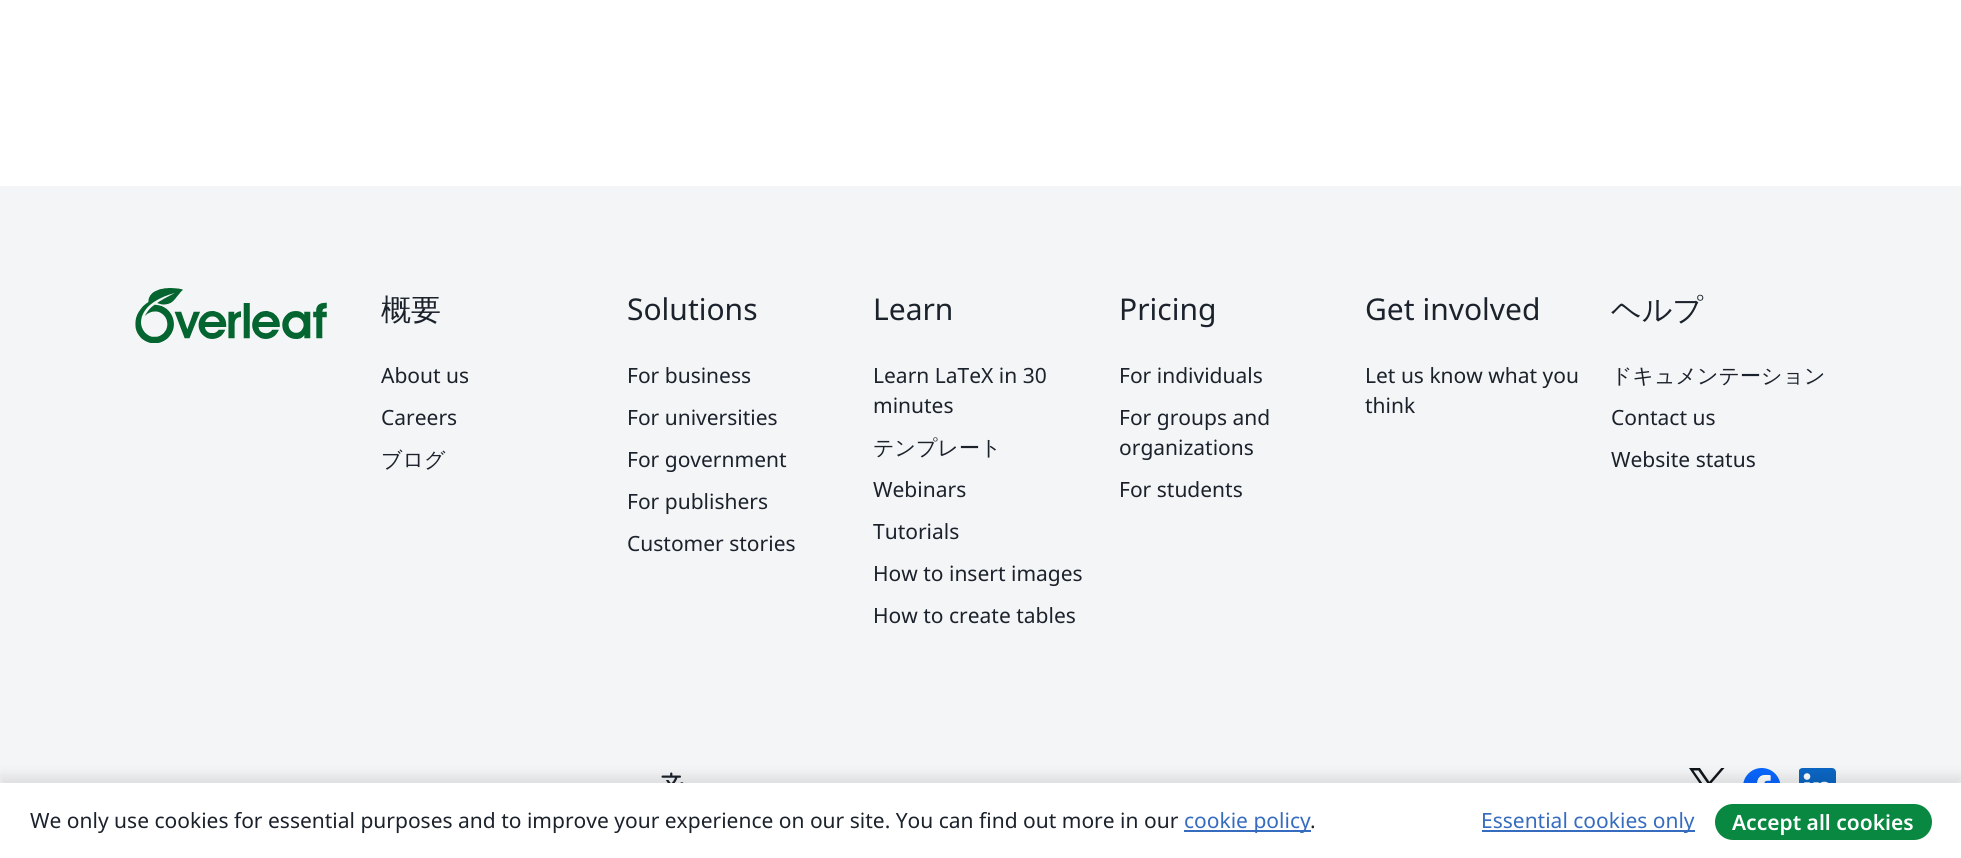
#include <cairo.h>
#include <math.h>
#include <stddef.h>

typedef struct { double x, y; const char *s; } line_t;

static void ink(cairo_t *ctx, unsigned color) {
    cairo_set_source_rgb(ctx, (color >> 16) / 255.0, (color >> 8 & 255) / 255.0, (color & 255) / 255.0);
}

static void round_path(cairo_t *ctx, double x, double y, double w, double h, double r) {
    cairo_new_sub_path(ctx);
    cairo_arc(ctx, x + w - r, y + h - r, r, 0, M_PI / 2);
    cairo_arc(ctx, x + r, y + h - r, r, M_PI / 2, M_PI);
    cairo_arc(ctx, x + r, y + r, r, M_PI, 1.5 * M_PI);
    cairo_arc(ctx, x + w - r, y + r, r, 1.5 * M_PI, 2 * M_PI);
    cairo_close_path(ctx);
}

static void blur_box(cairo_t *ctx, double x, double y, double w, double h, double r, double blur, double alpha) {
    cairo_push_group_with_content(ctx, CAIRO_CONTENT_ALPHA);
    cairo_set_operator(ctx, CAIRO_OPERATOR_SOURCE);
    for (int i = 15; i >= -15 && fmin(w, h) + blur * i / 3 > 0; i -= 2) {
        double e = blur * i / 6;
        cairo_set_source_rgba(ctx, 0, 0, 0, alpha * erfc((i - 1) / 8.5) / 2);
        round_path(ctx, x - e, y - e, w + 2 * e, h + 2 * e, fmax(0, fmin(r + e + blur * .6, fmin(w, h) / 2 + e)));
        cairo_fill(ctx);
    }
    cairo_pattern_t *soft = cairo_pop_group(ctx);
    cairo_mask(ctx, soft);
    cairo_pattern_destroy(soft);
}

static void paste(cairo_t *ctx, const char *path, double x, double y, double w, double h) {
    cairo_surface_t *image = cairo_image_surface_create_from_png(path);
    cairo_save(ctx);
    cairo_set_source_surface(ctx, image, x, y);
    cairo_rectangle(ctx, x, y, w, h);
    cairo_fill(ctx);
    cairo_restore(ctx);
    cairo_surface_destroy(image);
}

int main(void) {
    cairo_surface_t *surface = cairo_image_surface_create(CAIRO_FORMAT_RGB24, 1961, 858);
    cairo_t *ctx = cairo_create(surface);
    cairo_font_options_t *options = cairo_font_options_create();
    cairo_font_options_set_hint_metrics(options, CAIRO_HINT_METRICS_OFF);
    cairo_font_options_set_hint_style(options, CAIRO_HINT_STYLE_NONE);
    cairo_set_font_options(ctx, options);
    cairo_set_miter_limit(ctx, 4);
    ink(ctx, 0xFFFFFF);
    cairo_paint(ctx);
    ink(ctx, 0xF4F5F6);
    cairo_rectangle(ctx, 0, 186, 1961, 597);
    cairo_fill(ctx);
    paste(ctx, "media/1.png", 135, 288, 192, 55);
    cairo_select_font_face(ctx, "WenQuanYi Zen Hei Medium", CAIRO_FONT_SLANT_NORMAL, CAIRO_FONT_WEIGHT_NORMAL);
    cairo_set_font_size(ctx, 30);
    ink(ctx, 0x1B222C);
    cairo_move_to(ctx, 381, 320);
    cairo_show_text(ctx, "概要");
    cairo_select_font_face(ctx, "Noto Sans", CAIRO_FONT_SLANT_NORMAL, CAIRO_FONT_WEIGHT_NORMAL);
    cairo_set_font_size(ctx, 21);
    cairo_move_to(ctx, 381, 383);
    cairo_show_text(ctx, "About us");
    cairo_move_to(ctx, 381, 425);
    cairo_show_text(ctx, "Careers");
    cairo_select_font_face(ctx, "WenQuanYi Zen Hei Medium", CAIRO_FONT_SLANT_NORMAL, CAIRO_FONT_WEIGHT_NORMAL);
    cairo_move_to(ctx, 381, 467);
    cairo_show_text(ctx, "ブログ");
    cairo_select_font_face(ctx, "Noto Sans", CAIRO_FONT_SLANT_NORMAL, CAIRO_FONT_WEIGHT_NORMAL);
    cairo_set_font_size(ctx, 30);
    cairo_move_to(ctx, 627, 320);
    cairo_show_text(ctx, "Solutions");
    cairo_set_font_size(ctx, 21);
    {
        static const line_t items[] = {
            {627, 383, "For business"},
            {627, 425, "For universities"},
            {627, 467, "For government"},
            {627, 509, "For publishers"},
            {627, 551, "Customer stories"},
        };
        for (size_t i = 0; i < sizeof items / sizeof *items; i++) {
            cairo_move_to(ctx, items[i].x, items[i].y);
            cairo_show_text(ctx, items[i].s);
        }
    }
    cairo_set_font_size(ctx, 30);
    cairo_move_to(ctx, 873, 320);
    cairo_show_text(ctx, "Learn");
    cairo_set_font_size(ctx, 21);
    cairo_move_to(ctx, 873, 383);
    cairo_show_text(ctx, "Learn LaTeX in 30");
    cairo_move_to(ctx, 873, 413);
    cairo_show_text(ctx, "minutes");
    cairo_select_font_face(ctx, "WenQuanYi Zen Hei Medium", CAIRO_FONT_SLANT_NORMAL, CAIRO_FONT_WEIGHT_NORMAL);
    cairo_move_to(ctx, 873, 455);
    cairo_show_text(ctx, "テンプレート");
    cairo_select_font_face(ctx, "Noto Sans", CAIRO_FONT_SLANT_NORMAL, CAIRO_FONT_WEIGHT_NORMAL);
    {
        static const line_t items[] = {
            {873, 497, "Webinars"},
            {873, 539, "Tutorials"},
            {873, 581, "How to insert images"},
            {873, 623, "How to create tables"},
        };
        for (size_t i = 0; i < sizeof items / sizeof *items; i++) {
            cairo_move_to(ctx, items[i].x, items[i].y);
            cairo_show_text(ctx, items[i].s);
        }
    }
    cairo_set_font_size(ctx, 30);
    cairo_move_to(ctx, 1119, 320);
    cairo_show_text(ctx, "Pricing");
    cairo_set_font_size(ctx, 21);
    {
        static const line_t items[] = {
            {1119, 383, "For individuals"},
            {1119, 425, "For groups and"},
            {1119, 455, "organizations"},
            {1119, 497, "For students"},
        };
        for (size_t i = 0; i < sizeof items / sizeof *items; i++) {
            cairo_move_to(ctx, items[i].x, items[i].y);
            cairo_show_text(ctx, items[i].s);
        }
    }
    cairo_set_font_size(ctx, 30);
    cairo_move_to(ctx, 1365, 320);
    cairo_show_text(ctx, "Get involved");
    cairo_set_font_size(ctx, 21);
    cairo_move_to(ctx, 1365, 383);
    cairo_show_text(ctx, "Let us know what you");
    cairo_move_to(ctx, 1365, 413);
    cairo_show_text(ctx, "think");
    cairo_select_font_face(ctx, "WenQuanYi Zen Hei Medium", CAIRO_FONT_SLANT_NORMAL, CAIRO_FONT_WEIGHT_NORMAL);
    cairo_set_font_size(ctx, 30);
    cairo_move_to(ctx, 1611, 320);
    cairo_show_text(ctx, "ヘルプ");
    cairo_set_font_size(ctx, 21);
    cairo_move_to(ctx, 1611, 383);
    cairo_show_text(ctx, "ドキュメンテーション");
    cairo_select_font_face(ctx, "Noto Sans", CAIRO_FONT_SLANT_NORMAL, CAIRO_FONT_WEIGHT_NORMAL);
    cairo_move_to(ctx, 1611, 425);
    cairo_show_text(ctx, "Contact us");
    cairo_move_to(ctx, 1611, 467);
    cairo_show_text(ctx, "Website status");
    paste(ctx, "media/2.png", 661, 772, 23, 11);
    paste(ctx, "media/3.png", 1689, 768, 36, 15);
    paste(ctx, "media/4.png", 1743, 768, 38, 15);
    paste(ctx, "media/5.png", 1799, 768, 37, 15);
    ink(ctx, 0x000000);
    blur_box(ctx, 0, 776, 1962, 75, 0, 6, 0.1);
    ink(ctx, 0xFFFFFF);
    cairo_rectangle(ctx, 0, 783, 1961, 75);
    cairo_fill(ctx);
    ink(ctx, 0x1B222C);
    cairo_move_to(ctx, 30, 828);
    cairo_show_text(ctx, "We only use cookies for essential purposes and to improve your experience on our site. You can find out more in our");
    ink(ctx, 0x366CBF);
    cairo_rectangle(ctx, 1184, 830, 127, 2);
    cairo_fill(ctx);
    cairo_move_to(ctx, 1184, 828);
    cairo_show_text(ctx, "cookie policy");
    ink(ctx, 0x1B222C);
    cairo_move_to(ctx, 1310, 828);
    cairo_show_text(ctx, ".");
    ink(ctx, 0x366CBF);
    cairo_rectangle(ctx, 1482, 830, 213, 2);
    cairo_fill(ctx);
    cairo_move_to(ctx, 1481, 828);
    cairo_show_text(ctx, "Essential cookies only");
    ink(ctx, 0x098842);
    round_path(ctx, 1715, 804, 217, 36, 18);
    cairo_fill(ctx);
    cairo_select_font_face(ctx, "Noto Sans SemiBold", CAIRO_FONT_SLANT_NORMAL, CAIRO_FONT_WEIGHT_NORMAL);
    ink(ctx, 0xFFFFFF);
    cairo_move_to(ctx, 1732, 830);
    cairo_show_text(ctx, "Accept all cookies");
    cairo_surface_write_to_png(surface, "image.png");
    cairo_font_options_destroy(options);
    cairo_destroy(ctx);
    cairo_surface_destroy(surface);
    return 0;
}
